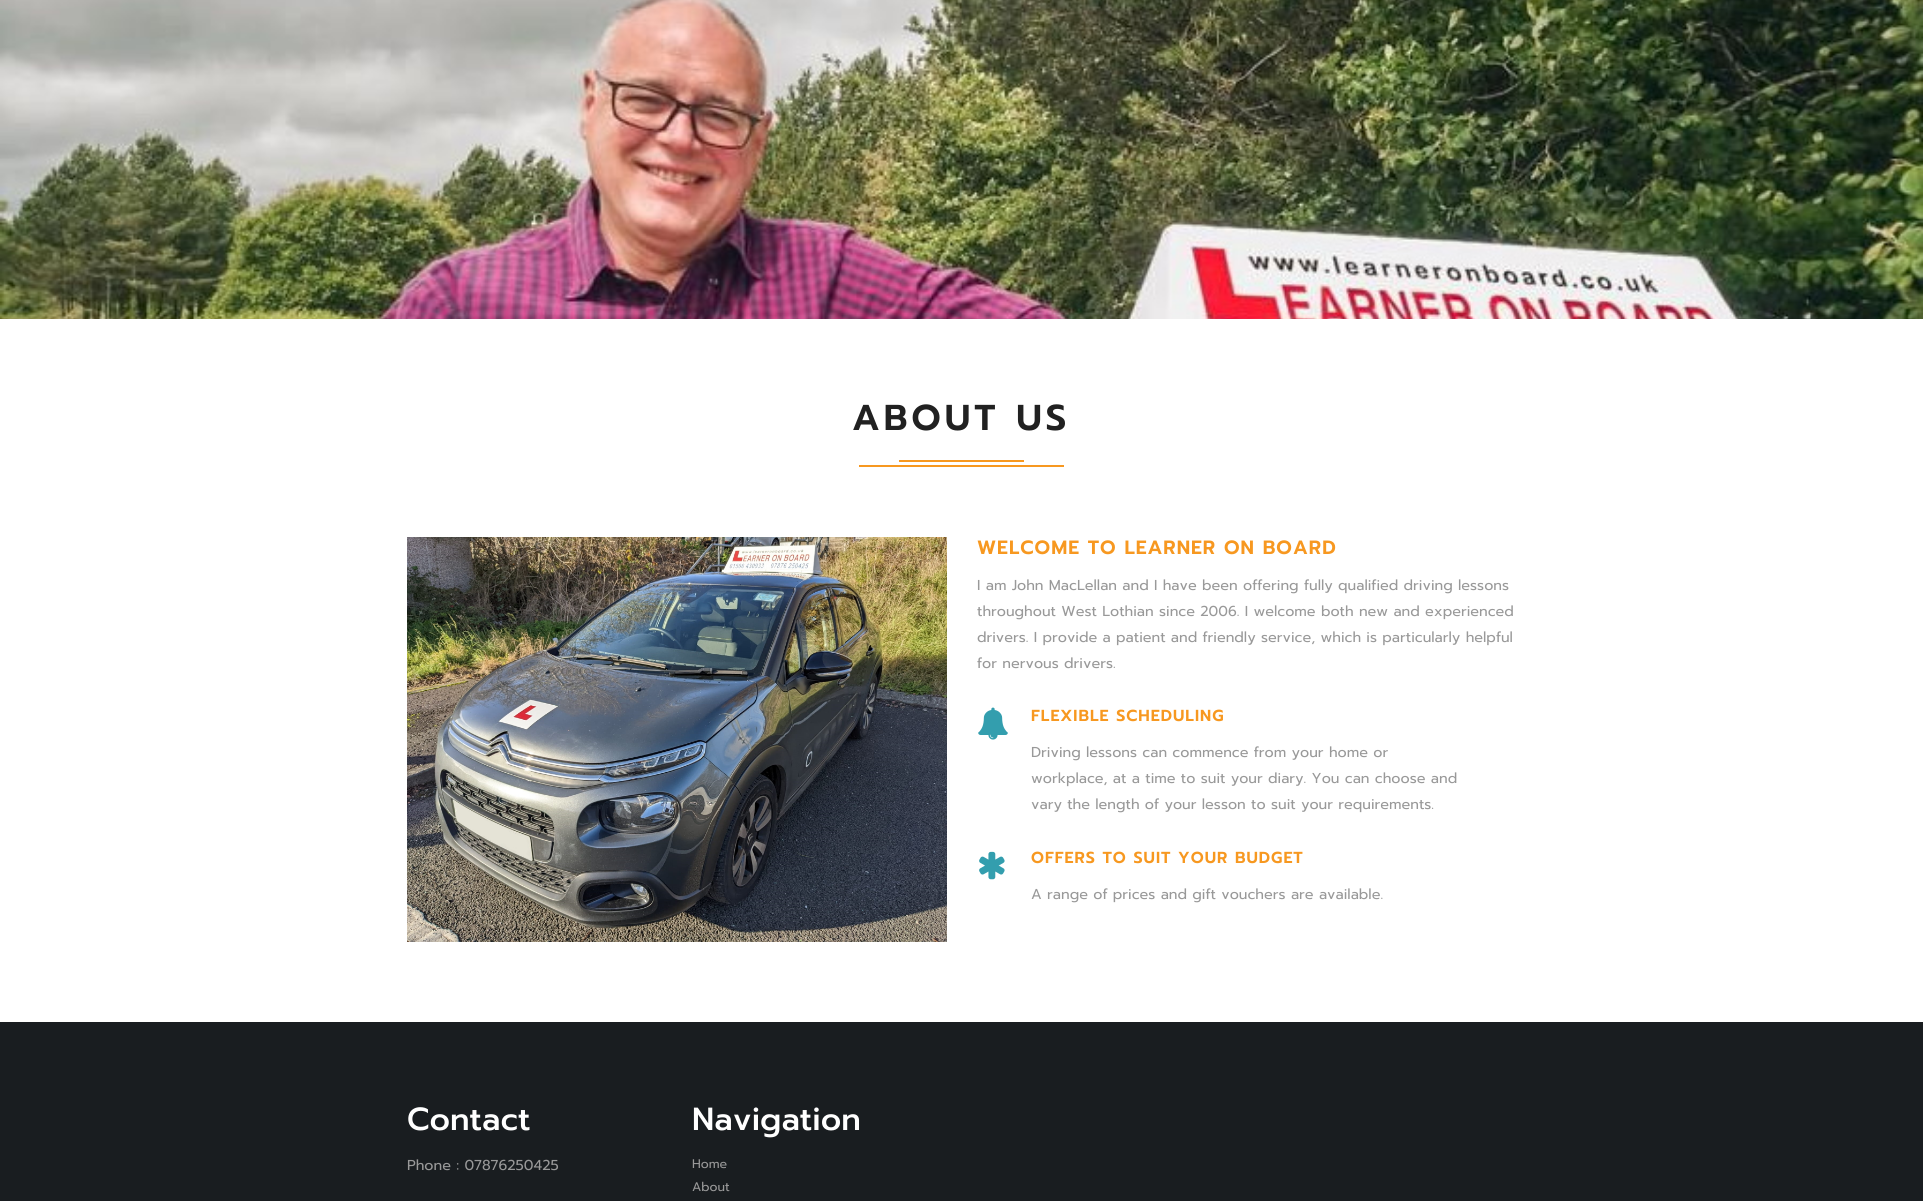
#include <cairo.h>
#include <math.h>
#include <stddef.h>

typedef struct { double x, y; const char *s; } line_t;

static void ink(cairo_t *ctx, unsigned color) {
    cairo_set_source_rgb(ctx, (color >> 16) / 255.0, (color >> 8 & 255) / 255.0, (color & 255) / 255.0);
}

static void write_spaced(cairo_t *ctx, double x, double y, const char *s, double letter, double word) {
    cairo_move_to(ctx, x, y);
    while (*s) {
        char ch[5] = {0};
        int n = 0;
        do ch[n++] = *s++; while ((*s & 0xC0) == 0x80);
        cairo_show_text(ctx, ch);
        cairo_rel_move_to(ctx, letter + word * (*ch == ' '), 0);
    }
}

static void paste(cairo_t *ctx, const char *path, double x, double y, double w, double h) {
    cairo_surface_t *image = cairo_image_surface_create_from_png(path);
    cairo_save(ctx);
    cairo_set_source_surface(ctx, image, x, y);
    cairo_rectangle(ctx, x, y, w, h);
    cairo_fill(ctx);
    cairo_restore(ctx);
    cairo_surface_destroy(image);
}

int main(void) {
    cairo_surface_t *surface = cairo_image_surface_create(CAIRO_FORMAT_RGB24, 1923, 1201);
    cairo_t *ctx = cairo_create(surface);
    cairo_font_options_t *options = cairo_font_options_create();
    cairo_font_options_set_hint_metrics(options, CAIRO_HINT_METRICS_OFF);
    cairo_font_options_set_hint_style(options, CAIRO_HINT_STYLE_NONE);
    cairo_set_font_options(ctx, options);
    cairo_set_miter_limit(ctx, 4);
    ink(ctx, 0xFFFFFF);
    cairo_paint(ctx);
    paste(ctx, "media/1.png", 0, 0, 1923, 319);
    cairo_select_font_face(ctx, "Prompt SemiBold", CAIRO_FONT_SLANT_NORMAL, CAIRO_FONT_WEIGHT_NORMAL);
    cairo_set_font_size(ctx, 36);
    ink(ctx, 0x212121);
    write_spaced(ctx, 852, 430, "ABOUT US", 4, 0);
    ink(ctx, 0xF79820);
    cairo_rectangle(ctx, 899, 460, 125, 2);
    cairo_fill(ctx);
    cairo_rectangle(ctx, 859, 465, 205, 2);
    cairo_fill(ctx);
    paste(ctx, "media/2.png", 407, 537, 540, 405);
    cairo_set_font_size(ctx, 19.25);
    write_spaced(ctx, 977, 554, "WELCOME TO LEARNER ON BOARD", 1, 0);
    cairo_select_font_face(ctx, "Prompt", CAIRO_FONT_SLANT_NORMAL, CAIRO_FONT_WEIGHT_NORMAL);
    cairo_set_font_size(ctx, 14.4);
    ink(ctx, 0x999999);
    {
        static const line_t items[] = {
            {977, 590, "I am John MacLellan and I have been offering fully qualified driving lessons"},
            {977, 616, "throughout West Lothian since 2006. I welcome both new and experienced"},
            {977, 642, "drivers. I provide a patient and friendly service, which is particularly helpful"},
            {977, 668, "for nervous drivers."},
        };
        for (size_t i = 0; i < sizeof items / sizeof *items; i++) {
            cairo_move_to(ctx, items[i].x, items[i].y);
            cairo_show_text(ctx, items[i].s);
        }
    }
    paste(ctx, "media/3.png", 978, 707, 30, 33);
    cairo_select_font_face(ctx, "Prompt SemiBold", CAIRO_FONT_SLANT_NORMAL, CAIRO_FONT_WEIGHT_NORMAL);
    cairo_set_font_size(ctx, 16);
    ink(ctx, 0xF79820);
    write_spaced(ctx, 1031, 721, "FLEXIBLE SCHEDULING", 1, 0);
    cairo_select_font_face(ctx, "Prompt", CAIRO_FONT_SLANT_NORMAL, CAIRO_FONT_WEIGHT_NORMAL);
    cairo_set_font_size(ctx, 14.4);
    ink(ctx, 0x999999);
    {
        static const line_t items[] = {
            {1031, 757, "Driving lessons can commence from your home or"},
            {1031, 783, "workplace, at a time to suit your diary. You can choose and"},
            {1031, 809, "vary the length of your lesson to suit your requirements."},
        };
        for (size_t i = 0; i < sizeof items / sizeof *items; i++) {
            cairo_move_to(ctx, items[i].x, items[i].y);
            cairo_show_text(ctx, items[i].s);
        }
    }
    paste(ctx, "media/4.png", 979, 851, 26, 29);
    cairo_select_font_face(ctx, "Prompt SemiBold", CAIRO_FONT_SLANT_NORMAL, CAIRO_FONT_WEIGHT_NORMAL);
    cairo_set_font_size(ctx, 16);
    ink(ctx, 0xF79820);
    write_spaced(ctx, 1031, 863, "OFFERS TO SUIT YOUR BUDGET", 1, 0);
    cairo_select_font_face(ctx, "Prompt", CAIRO_FONT_SLANT_NORMAL, CAIRO_FONT_WEIGHT_NORMAL);
    cairo_set_font_size(ctx, 14.4);
    ink(ctx, 0x999999);
    cairo_move_to(ctx, 1031, 899);
    cairo_show_text(ctx, "A range of prices and gift vouchers are available.");
    ink(ctx, 0x191D20);
    cairo_rectangle(ctx, 0, 1022, 1923, 179);
    cairo_fill(ctx);
    cairo_select_font_face(ctx, "Prompt Medium", CAIRO_FONT_SLANT_NORMAL, CAIRO_FONT_WEIGHT_NORMAL);
    cairo_set_font_size(ctx, 32);
    ink(ctx, 0xFFFFFF);
    cairo_move_to(ctx, 407, 1130);
    cairo_show_text(ctx, "Contact");
    cairo_select_font_face(ctx, "Prompt", CAIRO_FONT_SLANT_NORMAL, CAIRO_FONT_WEIGHT_NORMAL);
    cairo_set_font_size(ctx, 14.4);
    ink(ctx, 0x999999);
    cairo_move_to(ctx, 407, 1170);
    cairo_show_text(ctx, "Phone : 07876250425");
    cairo_select_font_face(ctx, "Prompt Medium", CAIRO_FONT_SLANT_NORMAL, CAIRO_FONT_WEIGHT_NORMAL);
    cairo_set_font_size(ctx, 32);
    ink(ctx, 0xFFFFFF);
    cairo_move_to(ctx, 692, 1130);
    cairo_show_text(ctx, "Navigation");
    cairo_select_font_face(ctx, "Prompt", CAIRO_FONT_SLANT_NORMAL, CAIRO_FONT_WEIGHT_NORMAL);
    cairo_set_font_size(ctx, 12.5);
    ink(ctx, 0x999999);
    cairo_move_to(ctx, 692, 1168);
    cairo_show_text(ctx, "Home");
    cairo_move_to(ctx, 692, 1191);
    cairo_show_text(ctx, "About");
    cairo_surface_write_to_png(surface, "image.png");
    cairo_font_options_destroy(options);
    cairo_destroy(ctx);
    cairo_surface_destroy(surface);
    return 0;
}
